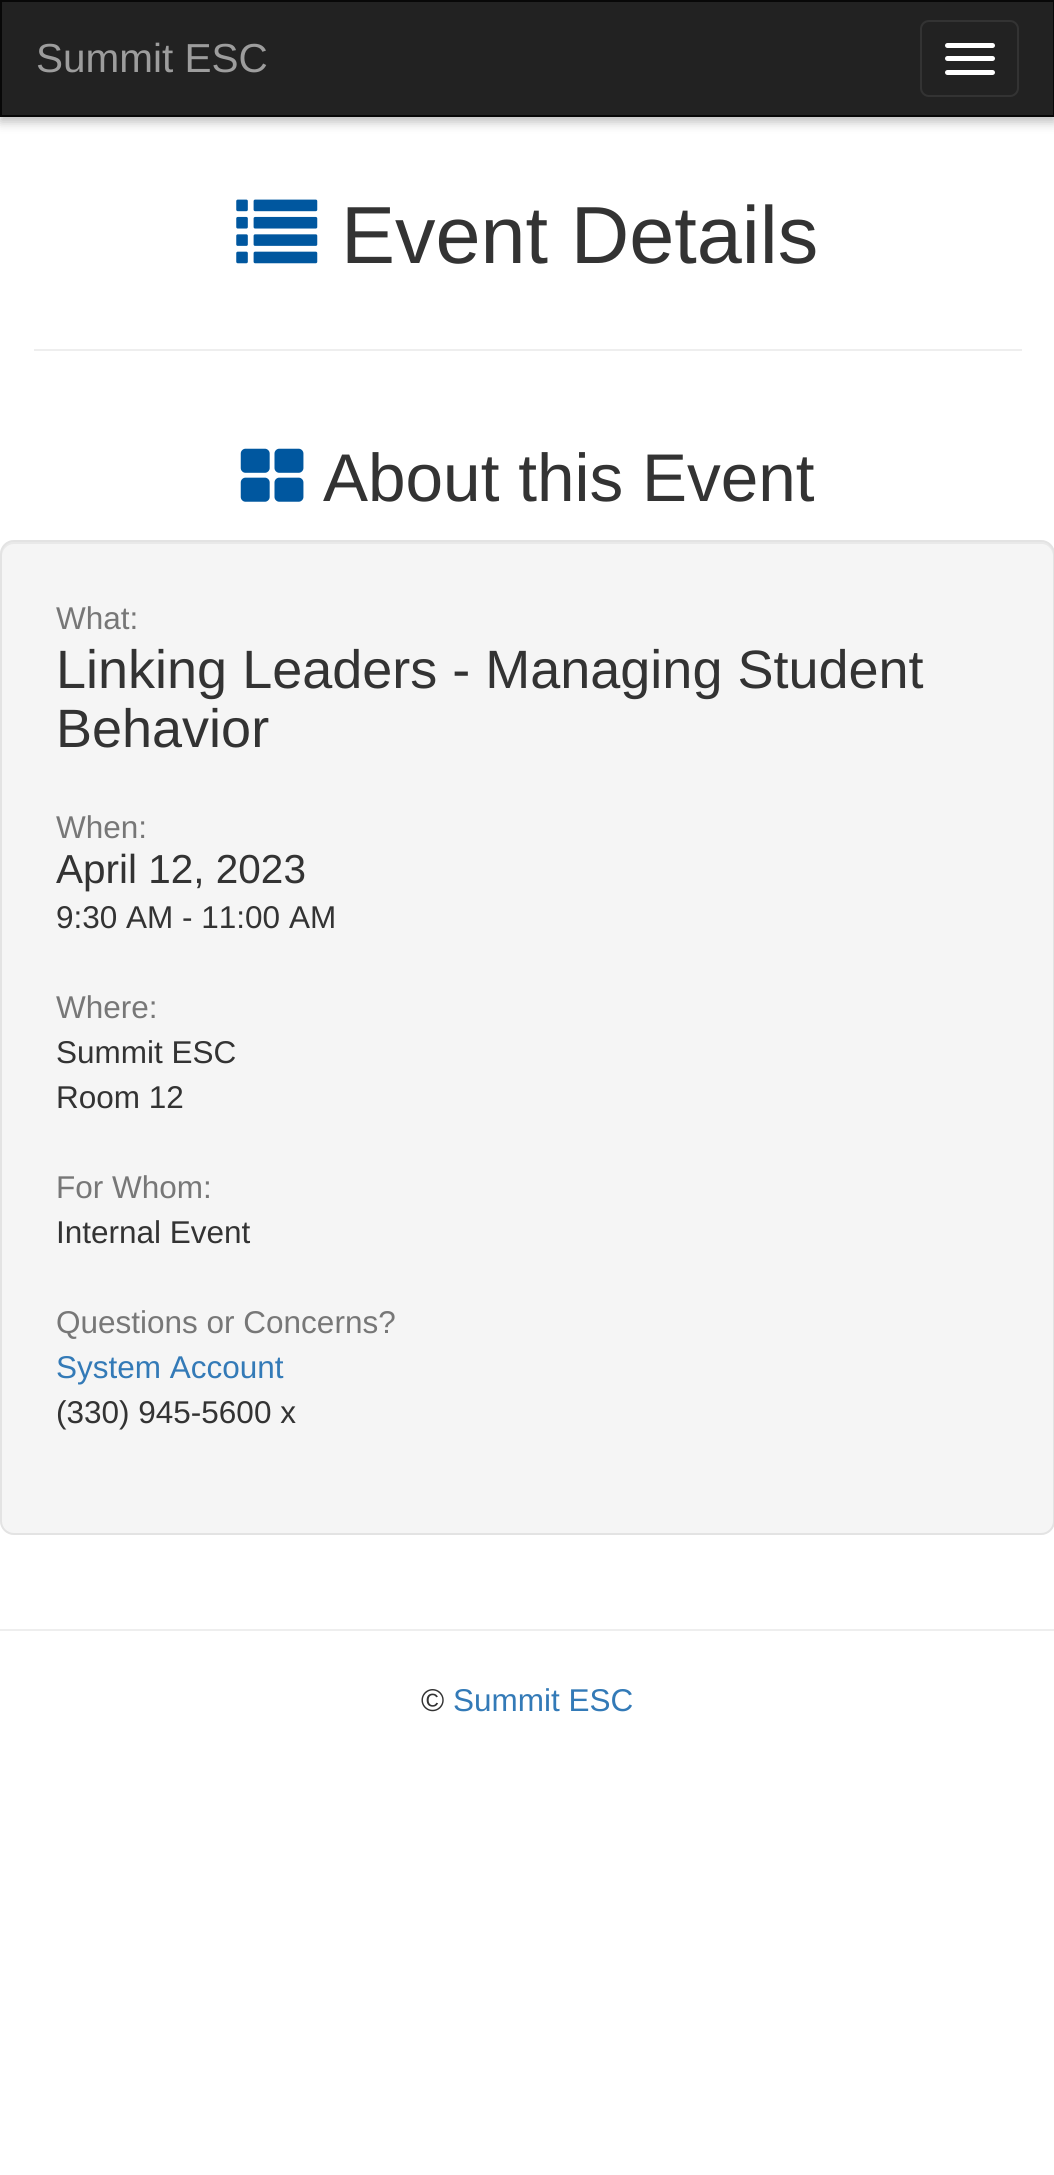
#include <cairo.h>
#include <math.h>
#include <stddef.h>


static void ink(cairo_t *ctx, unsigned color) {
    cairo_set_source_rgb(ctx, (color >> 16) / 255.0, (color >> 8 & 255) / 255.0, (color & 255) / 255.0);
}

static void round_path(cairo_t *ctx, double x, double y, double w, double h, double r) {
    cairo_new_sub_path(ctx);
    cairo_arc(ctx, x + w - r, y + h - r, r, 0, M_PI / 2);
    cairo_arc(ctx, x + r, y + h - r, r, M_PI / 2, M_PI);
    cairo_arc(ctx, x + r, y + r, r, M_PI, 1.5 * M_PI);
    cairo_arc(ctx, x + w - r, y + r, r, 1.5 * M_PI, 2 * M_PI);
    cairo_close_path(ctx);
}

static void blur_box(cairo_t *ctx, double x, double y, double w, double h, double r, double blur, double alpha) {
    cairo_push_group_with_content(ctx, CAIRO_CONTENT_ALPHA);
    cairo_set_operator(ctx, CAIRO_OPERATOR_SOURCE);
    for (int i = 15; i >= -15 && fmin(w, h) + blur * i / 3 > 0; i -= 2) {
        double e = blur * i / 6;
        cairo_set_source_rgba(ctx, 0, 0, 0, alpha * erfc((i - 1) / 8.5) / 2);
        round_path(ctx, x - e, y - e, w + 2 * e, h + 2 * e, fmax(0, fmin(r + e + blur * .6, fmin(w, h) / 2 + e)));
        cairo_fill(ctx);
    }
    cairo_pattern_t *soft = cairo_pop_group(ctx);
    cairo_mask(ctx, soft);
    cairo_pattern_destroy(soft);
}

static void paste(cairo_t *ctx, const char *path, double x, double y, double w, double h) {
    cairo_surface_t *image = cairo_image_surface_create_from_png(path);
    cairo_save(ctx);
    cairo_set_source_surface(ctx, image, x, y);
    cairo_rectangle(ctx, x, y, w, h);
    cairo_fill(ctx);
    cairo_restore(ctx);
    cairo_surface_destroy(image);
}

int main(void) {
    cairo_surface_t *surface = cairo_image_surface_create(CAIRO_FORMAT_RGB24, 1054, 2175);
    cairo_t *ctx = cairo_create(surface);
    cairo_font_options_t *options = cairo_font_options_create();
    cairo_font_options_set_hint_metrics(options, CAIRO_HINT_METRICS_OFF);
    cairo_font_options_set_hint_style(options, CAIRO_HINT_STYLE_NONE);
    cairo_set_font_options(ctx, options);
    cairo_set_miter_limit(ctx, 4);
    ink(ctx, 0xFFFFFF);
    cairo_paint(ctx);
    ink(ctx, 0x000000);
    blur_box(ctx, 0, 5, 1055, 117, 0, 5.5, 0.26);
    ink(ctx, 0x222222);
    cairo_rectangle(ctx, 1, 1, 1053, 115);
    cairo_fill_preserve(ctx);
    ink(ctx, 0x080808);
    cairo_stroke(ctx);
    cairo_select_font_face(ctx, "Liberation Sans", CAIRO_FONT_SLANT_NORMAL, CAIRO_FONT_WEIGHT_NORMAL);
    cairo_set_font_size(ctx, 40.5);
    ink(ctx, 0x9D9D9D);
    cairo_move_to(ctx, 36, 72);
    cairo_show_text(ctx, "Summit ESC");
    round_path(ctx, 921, 21, 97, 75, 8);
    ink(ctx, 0x333333);
    cairo_stroke(ctx);
    ink(ctx, 0xFFFFFF);
    round_path(ctx, 945, 43, 50, 5, 2.5);
    cairo_fill(ctx);
    round_path(ctx, 945, 56, 50, 5, 2.5);
    cairo_fill(ctx);
    round_path(ctx, 945, 70, 50, 5, 2.5);
    cairo_fill(ctx);
    paste(ctx, "media/1.png", 236, 199, 82, 65);
    cairo_set_font_size(ctx, 81);
    ink(ctx, 0x333333);
    cairo_move_to(ctx, 341, 263);
    cairo_show_text(ctx, "Event Details");
    ink(ctx, 0xEEEEEE);
    cairo_rectangle(ctx, 34, 349, 988, 2);
    cairo_fill(ctx);
    paste(ctx, "media/2.png", 240, 448, 64, 54);
    cairo_set_font_size(ctx, 67.5);
    ink(ctx, 0x333333);
    cairo_move_to(ctx, 323, 501);
    cairo_show_text(ctx, "About this Event");
    ink(ctx, 0xF5F5F5);
    round_path(ctx, 0, 540, 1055, 995, 14);
    cairo_fill(ctx);
    ink(ctx, 0xE9E9E9);
    cairo_new_path(ctx);
    cairo_move_to(ctx, 14, 544);
    cairo_line_to(ctx, 1042, 544);
    cairo_curve_to(ctx, 1048, 544, 1053, 550, 1053, 556);
    cairo_line_to(ctx, 1053, 553);
    cairo_curve_to(ctx, 1053, 547, 1048, 542, 1042, 542);
    cairo_line_to(ctx, 13, 542);
    cairo_curve_to(ctx, 7, 542, 2, 547, 2, 553);
    cairo_line_to(ctx, 2, 556);
    cairo_curve_to(ctx, 2, 550, 7, 544, 14, 544);
    cairo_close_path(ctx);
    cairo_fill(ctx);
    round_path(ctx, 1, 541, 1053, 993, 13);
    ink(ctx, 0xE3E3E3);
    cairo_stroke(ctx);
    cairo_set_font_size(ctx, 31.5);
    ink(ctx, 0x777777);
    cairo_move_to(ctx, 56, 629);
    cairo_show_text(ctx, "What:");
    cairo_set_font_size(ctx, 54);
    ink(ctx, 0x333333);
    cairo_move_to(ctx, 56, 688);
    cairo_show_text(ctx, "Linking Leaders - Managing Student");
    cairo_move_to(ctx, 56, 747);
    cairo_show_text(ctx, "Behavior");
    cairo_set_font_size(ctx, 31.5);
    ink(ctx, 0x777777);
    cairo_move_to(ctx, 56, 838);
    cairo_show_text(ctx, "When:");
    cairo_set_font_size(ctx, 40.5);
    ink(ctx, 0x333333);
    cairo_move_to(ctx, 56, 883);
    cairo_show_text(ctx, "April 12, 2023");
    cairo_set_font_size(ctx, 31.5);
    cairo_move_to(ctx, 56, 928);
    cairo_show_text(ctx, "9:30 AM - 11:00 AM");
    ink(ctx, 0x777777);
    cairo_move_to(ctx, 56, 1018);
    cairo_show_text(ctx, "Where:");
    ink(ctx, 0x333333);
    cairo_move_to(ctx, 56, 1063);
    cairo_show_text(ctx, "Summit ESC");
    cairo_move_to(ctx, 56, 1108);
    cairo_show_text(ctx, "Room 12");
    ink(ctx, 0x777777);
    cairo_move_to(ctx, 56, 1198);
    cairo_show_text(ctx, "For Whom:");
    ink(ctx, 0x333333);
    cairo_move_to(ctx, 56, 1243);
    cairo_show_text(ctx, "Internal Event");
    ink(ctx, 0x777777);
    cairo_move_to(ctx, 56, 1333);
    cairo_show_text(ctx, "Questions or Concerns?");
    ink(ctx, 0x337AB7);
    cairo_move_to(ctx, 56, 1378);
    cairo_show_text(ctx, "System Account");
    ink(ctx, 0x333333);
    cairo_move_to(ctx, 56, 1423);
    cairo_show_text(ctx, "(330) 945-5600 x");
    ink(ctx, 0xEEEEEE);
    cairo_rectangle(ctx, 0, 1629, 1054, 2);
    cairo_fill(ctx);
    ink(ctx, 0x333333);
    cairo_move_to(ctx, 421, 1711);
    cairo_show_text(ctx, "©");
    ink(ctx, 0x337AB7);
    cairo_move_to(ctx, 453, 1711);
    cairo_show_text(ctx, "Summit ESC");
    cairo_surface_write_to_png(surface, "image.png");
    cairo_font_options_destroy(options);
    cairo_destroy(ctx);
    cairo_surface_destroy(surface);
    return 0;
}
